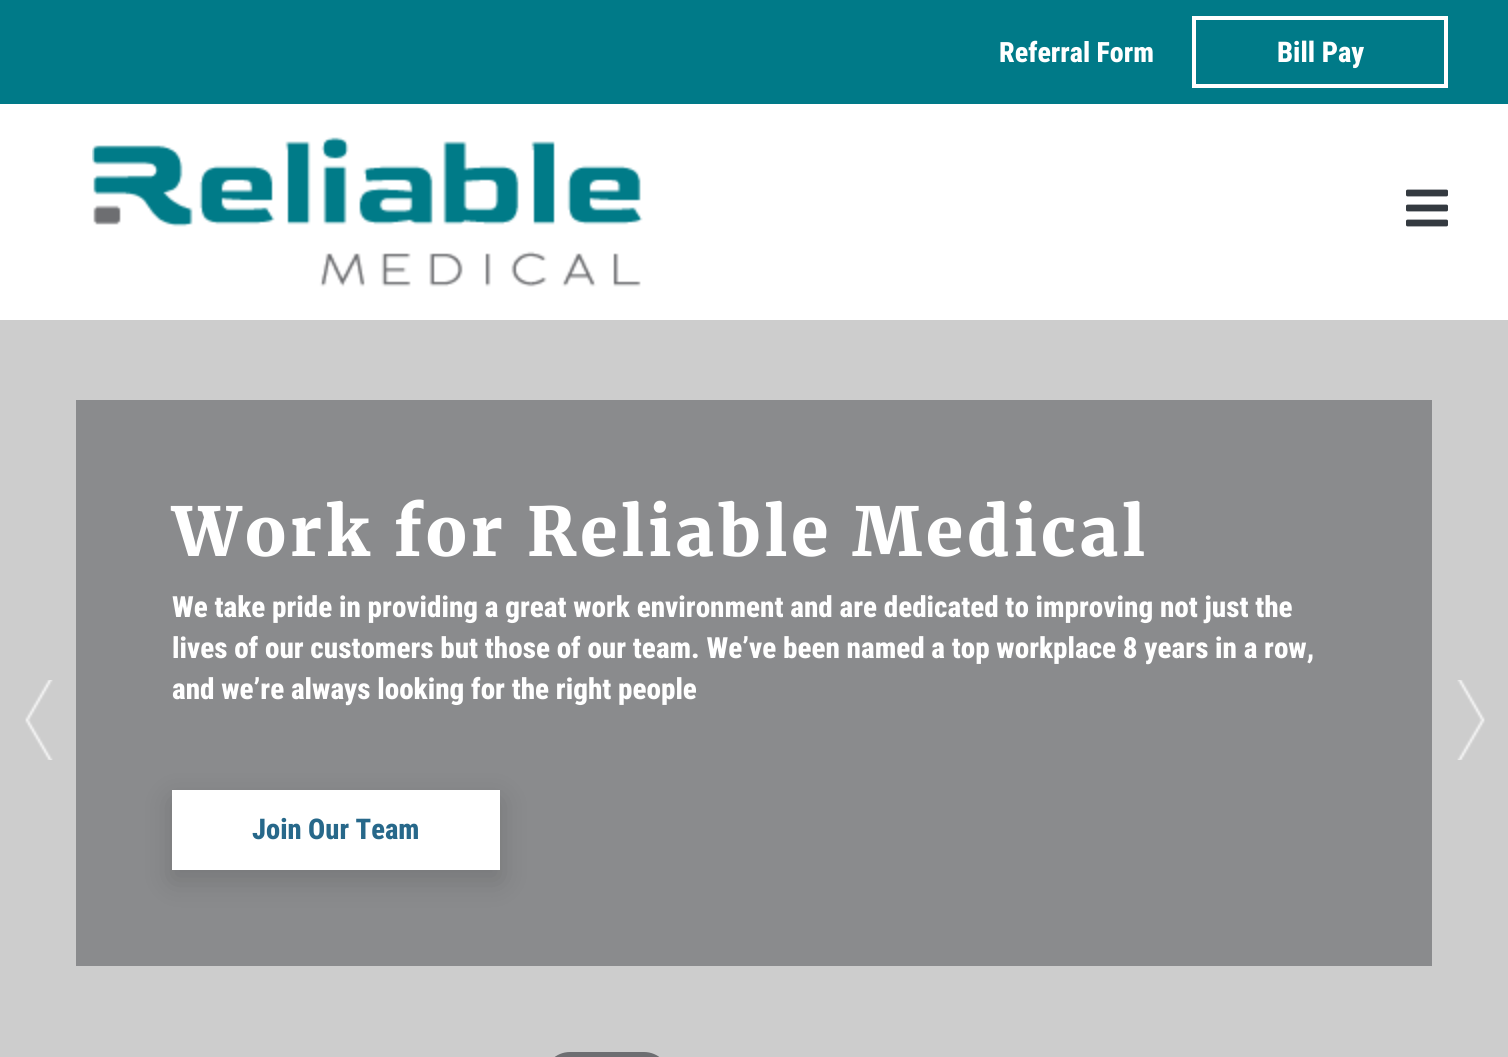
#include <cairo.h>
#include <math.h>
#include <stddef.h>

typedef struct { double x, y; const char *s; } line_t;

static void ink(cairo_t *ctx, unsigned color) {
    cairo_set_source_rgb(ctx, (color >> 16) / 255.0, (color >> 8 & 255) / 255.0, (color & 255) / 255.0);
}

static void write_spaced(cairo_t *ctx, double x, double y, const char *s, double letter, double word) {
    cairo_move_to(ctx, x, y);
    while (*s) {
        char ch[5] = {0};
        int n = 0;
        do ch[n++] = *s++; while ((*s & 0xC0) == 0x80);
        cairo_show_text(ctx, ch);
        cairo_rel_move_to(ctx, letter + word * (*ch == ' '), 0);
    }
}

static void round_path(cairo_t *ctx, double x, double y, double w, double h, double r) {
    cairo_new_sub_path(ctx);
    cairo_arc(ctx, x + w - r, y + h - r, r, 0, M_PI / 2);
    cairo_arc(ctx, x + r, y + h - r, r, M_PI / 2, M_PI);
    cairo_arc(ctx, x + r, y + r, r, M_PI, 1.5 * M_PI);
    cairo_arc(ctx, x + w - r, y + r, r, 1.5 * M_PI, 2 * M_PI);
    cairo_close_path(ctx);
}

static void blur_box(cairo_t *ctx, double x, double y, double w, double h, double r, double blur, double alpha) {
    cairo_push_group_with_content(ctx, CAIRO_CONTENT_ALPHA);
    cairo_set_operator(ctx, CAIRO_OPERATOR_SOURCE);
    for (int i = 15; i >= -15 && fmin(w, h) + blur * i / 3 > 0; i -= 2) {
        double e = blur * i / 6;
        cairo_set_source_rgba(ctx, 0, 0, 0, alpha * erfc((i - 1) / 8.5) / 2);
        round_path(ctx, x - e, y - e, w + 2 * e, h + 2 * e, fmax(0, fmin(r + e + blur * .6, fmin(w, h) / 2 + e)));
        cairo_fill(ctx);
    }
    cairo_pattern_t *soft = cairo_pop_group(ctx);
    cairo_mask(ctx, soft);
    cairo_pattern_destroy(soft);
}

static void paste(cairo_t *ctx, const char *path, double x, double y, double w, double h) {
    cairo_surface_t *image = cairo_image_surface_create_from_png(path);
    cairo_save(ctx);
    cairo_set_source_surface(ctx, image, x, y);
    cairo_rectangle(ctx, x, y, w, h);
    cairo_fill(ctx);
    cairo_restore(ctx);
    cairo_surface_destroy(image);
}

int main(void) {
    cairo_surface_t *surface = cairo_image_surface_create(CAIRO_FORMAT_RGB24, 1508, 1057);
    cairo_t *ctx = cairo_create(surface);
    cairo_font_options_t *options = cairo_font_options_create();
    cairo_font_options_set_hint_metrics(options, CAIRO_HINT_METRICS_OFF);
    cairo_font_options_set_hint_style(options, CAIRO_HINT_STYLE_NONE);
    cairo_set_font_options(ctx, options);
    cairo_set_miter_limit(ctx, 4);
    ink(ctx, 0xFFFFFF);
    cairo_paint(ctx);
    ink(ctx, 0x007A88);
    cairo_rectangle(ctx, 0, 0, 1508, 104);
    cairo_fill(ctx);
    cairo_select_font_face(ctx, "Roboto Condensed ExtraBold", CAIRO_FONT_SLANT_NORMAL, CAIRO_FONT_WEIGHT_NORMAL);
    cairo_set_font_size(ctx, 28);
    ink(ctx, 0xFFFFFF);
    cairo_move_to(ctx, 999, 62);
    cairo_show_text(ctx, "Referral Form");
    cairo_rectangle(ctx, 1194, 18, 252, 68);
    cairo_set_line_width(ctx, 4);
    cairo_stroke(ctx);
    cairo_set_font_size(ctx, 28.5);
    cairo_move_to(ctx, 1277, 62);
    cairo_show_text(ctx, "Bill Pay");
    paste(ctx, "media/1.png", 92, 137, 551, 150);
    paste(ctx, "media/2.png", 1406, 189, 42, 38);
    ink(ctx, 0xCDCDCD);
    cairo_rectangle(ctx, 0, 320, 1508, 737);
    cairo_fill(ctx);
    ink(ctx, 0x8A8B8D);
    cairo_rectangle(ctx, 76, 400, 1356, 566);
    cairo_fill(ctx);
    cairo_select_font_face(ctx, "Merriweather Light", CAIRO_FONT_SLANT_NORMAL, CAIRO_FONT_WEIGHT_NORMAL);
    cairo_set_font_size(ctx, 67.4);
    ink(ctx, 0xFFFFFF);
    write_spaced(ctx, 172, 556, "Work for Reliable Medical", 4, 0);
    cairo_select_font_face(ctx, "Roboto Condensed ExtraBold", CAIRO_FONT_SLANT_NORMAL, CAIRO_FONT_WEIGHT_NORMAL);
    cairo_set_font_size(ctx, 29.15);
    {
        static const line_t items[] = {
            {172, 617, "We take pride in providing a great work environment and are dedicated to improving not just the"},
            {172, 658, "lives of our customers but those of our team. We’ve been named a top workplace 8 years in a row,"},
            {172, 699, "and we’re always looking for the right people"},
        };
        for (size_t i = 0; i < sizeof items / sizeof *items; i++) {
            cairo_move_to(ctx, items[i].x, items[i].y);
            cairo_show_text(ctx, items[i].s);
        }
    }
    ink(ctx, 0x000000);
    blur_box(ctx, 172, 800, 328, 80, 0, 15, 0.15);
    ink(ctx, 0xFFFFFF);
    cairo_rectangle(ctx, 172, 790, 328, 80);
    cairo_fill(ctx);
    cairo_set_font_size(ctx, 28.5);
    ink(ctx, 0x27688A);
    cairo_move_to(ctx, 252, 839);
    cairo_show_text(ctx, "Join Our Team");
    paste(ctx, "media/3.png", 25, 680, 28, 80);
    paste(ctx, "media/4.png", 1457, 680, 28, 80);
    ink(ctx, 0x6D6E71);
    round_path(ctx, 544, 1052, 126, 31, 26);
    cairo_fill(ctx);
    cairo_surface_write_to_png(surface, "image.png");
    cairo_font_options_destroy(options);
    cairo_destroy(ctx);
    cairo_surface_destroy(surface);
    return 0;
}
